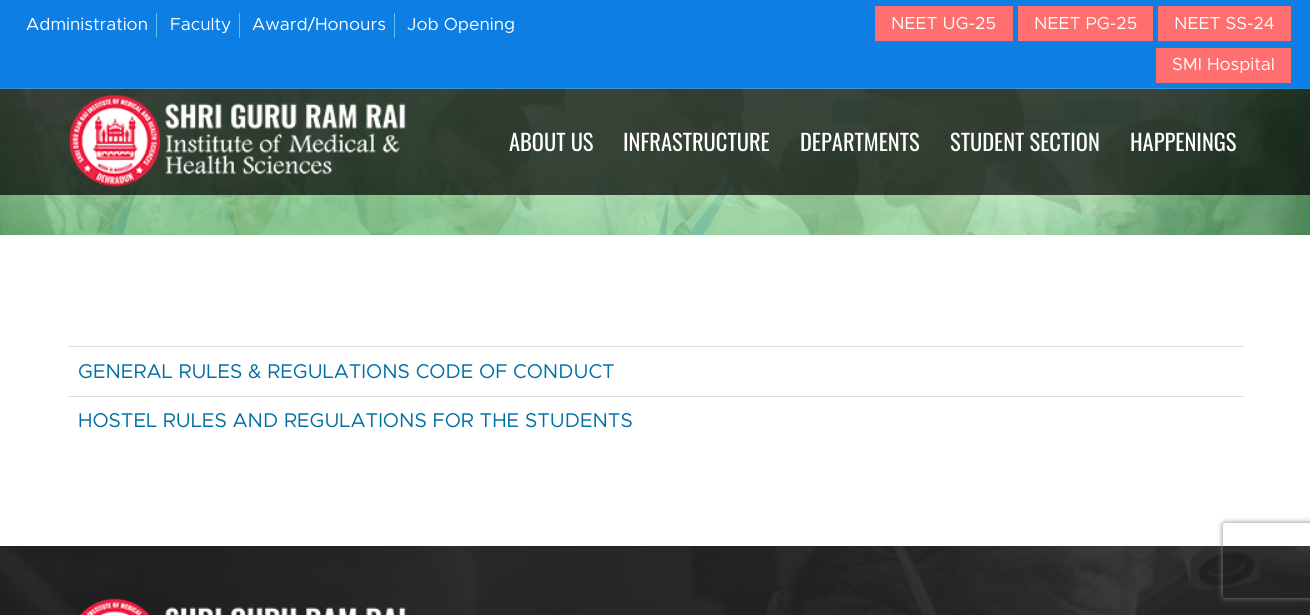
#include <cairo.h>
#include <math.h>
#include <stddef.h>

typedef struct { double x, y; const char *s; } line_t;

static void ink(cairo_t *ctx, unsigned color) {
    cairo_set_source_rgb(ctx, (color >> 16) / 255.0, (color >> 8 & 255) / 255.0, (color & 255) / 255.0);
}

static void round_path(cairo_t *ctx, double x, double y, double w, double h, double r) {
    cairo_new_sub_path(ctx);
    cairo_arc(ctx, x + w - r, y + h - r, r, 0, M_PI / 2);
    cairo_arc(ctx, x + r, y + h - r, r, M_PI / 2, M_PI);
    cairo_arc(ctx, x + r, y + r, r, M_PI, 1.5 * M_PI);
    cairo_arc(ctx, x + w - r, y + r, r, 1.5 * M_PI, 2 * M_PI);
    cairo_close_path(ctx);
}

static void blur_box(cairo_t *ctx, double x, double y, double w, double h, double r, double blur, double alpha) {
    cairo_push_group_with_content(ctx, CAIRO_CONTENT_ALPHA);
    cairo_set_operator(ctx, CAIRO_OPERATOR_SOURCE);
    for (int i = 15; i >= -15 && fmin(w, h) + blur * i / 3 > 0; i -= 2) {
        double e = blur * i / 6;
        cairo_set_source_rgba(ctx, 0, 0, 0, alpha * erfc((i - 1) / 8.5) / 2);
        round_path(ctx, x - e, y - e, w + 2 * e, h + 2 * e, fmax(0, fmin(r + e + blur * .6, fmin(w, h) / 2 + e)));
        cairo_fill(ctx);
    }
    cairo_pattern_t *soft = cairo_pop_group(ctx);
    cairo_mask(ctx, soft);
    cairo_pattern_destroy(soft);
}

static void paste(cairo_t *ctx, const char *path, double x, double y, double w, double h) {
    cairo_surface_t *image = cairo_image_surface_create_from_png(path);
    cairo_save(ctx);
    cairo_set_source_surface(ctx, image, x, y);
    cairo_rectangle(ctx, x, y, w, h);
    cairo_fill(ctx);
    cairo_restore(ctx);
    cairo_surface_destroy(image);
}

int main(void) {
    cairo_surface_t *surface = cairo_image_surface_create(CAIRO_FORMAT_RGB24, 1310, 615);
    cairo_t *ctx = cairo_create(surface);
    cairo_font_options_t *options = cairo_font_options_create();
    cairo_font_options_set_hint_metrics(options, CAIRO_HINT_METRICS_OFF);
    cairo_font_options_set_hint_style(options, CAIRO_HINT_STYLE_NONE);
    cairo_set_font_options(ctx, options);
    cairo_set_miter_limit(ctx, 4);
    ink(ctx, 0xFFFFFF);
    cairo_paint(ctx);
    ink(ctx, 0x0D7EE3);
    cairo_rectangle(ctx, 0, 0, 1310, 89);
    cairo_fill(ctx);
    ink(ctx, 0x5EC3F3);
    cairo_rectangle(ctx, 156, 13, 1, 25);
    cairo_fill(ctx);
    cairo_select_font_face(ctx, "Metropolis", CAIRO_FONT_SLANT_NORMAL, CAIRO_FONT_WEIGHT_NORMAL);
    cairo_set_font_size(ctx, 17.5);
    ink(ctx, 0xFFFFFF);
    cairo_move_to(ctx, 26, 30);
    cairo_show_text(ctx, "Administration");
    ink(ctx, 0x5EC3F3);
    cairo_rectangle(ctx, 239, 13, 1, 25);
    cairo_fill(ctx);
    ink(ctx, 0xFFFFFF);
    cairo_move_to(ctx, 170, 30);
    cairo_show_text(ctx, "Faculty");
    ink(ctx, 0x5EC3F3);
    cairo_rectangle(ctx, 394, 13, 1, 25);
    cairo_fill(ctx);
    ink(ctx, 0xFFFFFF);
    cairo_move_to(ctx, 252, 30);
    cairo_show_text(ctx, "Award/Honours");
    cairo_move_to(ctx, 407, 30);
    cairo_show_text(ctx, "Job Opening");
    ink(ctx, 0xFF6F6F);
    cairo_rectangle(ctx, 875, 6, 138, 35);
    cairo_fill(ctx);
    ink(ctx, 0xFFFFFF);
    cairo_move_to(ctx, 891, 29);
    cairo_show_text(ctx, "NEET UG-25");
    ink(ctx, 0xFF6F6F);
    cairo_rectangle(ctx, 1018, 6, 135, 35);
    cairo_fill(ctx);
    ink(ctx, 0xFFFFFF);
    cairo_move_to(ctx, 1034, 29);
    cairo_show_text(ctx, "NEET PG-25");
    ink(ctx, 0xFF6F6F);
    cairo_rectangle(ctx, 1158, 6, 133, 35);
    cairo_fill(ctx);
    ink(ctx, 0xFFFFFF);
    cairo_move_to(ctx, 1174, 29);
    cairo_show_text(ctx, "NEET SS-24");
    ink(ctx, 0xFF6F6F);
    cairo_rectangle(ctx, 1156, 48, 135, 35);
    cairo_fill(ctx);
    ink(ctx, 0xFFFFFF);
    cairo_move_to(ctx, 1172, 70);
    cairo_show_text(ctx, "SMI Hospital");
    paste(ctx, "media/2.png", 0, 88, 1310, 147);
    cairo_set_source_rgba(ctx, 0, 0, 0, 0.7);
    cairo_rectangle(ctx, 0, 89, 1310, 106);
    cairo_fill(ctx);
    paste(ctx, "media/1.png", 69, 94, 337, 93);
    cairo_select_font_face(ctx, "Oswald", CAIRO_FONT_SLANT_NORMAL, CAIRO_FONT_WEIGHT_NORMAL);
    cairo_set_font_size(ctx, 22.5);
    ink(ctx, 0xFFFFFF);
    {
        static const line_t items[] = {
            {509, 151, "ABOUT US"},
            {623, 151, "INFRASTRUCTURE"},
            {800, 151, "DEPARTMENTS"},
            {950, 151, "STUDENT SECTION"},
            {1130, 151, "HAPPENINGS"},
        };
        for (size_t i = 0; i < sizeof items / sizeof *items; i++) {
            cairo_move_to(ctx, items[i].x, items[i].y);
            cairo_show_text(ctx, items[i].s);
        }
    }
    ink(ctx, 0xDDDDDD);
    cairo_rectangle(ctx, 68, 346, 1176, 1);
    cairo_fill(ctx);
    cairo_select_font_face(ctx, "Metropolis", CAIRO_FONT_SLANT_NORMAL, CAIRO_FONT_WEIGHT_NORMAL);
    cairo_set_font_size(ctx, 20);
    ink(ctx, 0x006FA4);
    cairo_move_to(ctx, 78, 378);
    cairo_show_text(ctx, "GENERAL RULES & REGULATIONS CODE OF CONDUCT");
    ink(ctx, 0xDDDDDD);
    cairo_rectangle(ctx, 68, 396, 1176, 1);
    cairo_fill(ctx);
    ink(ctx, 0x006FA4);
    cairo_move_to(ctx, 78, 427);
    cairo_show_text(ctx, "HOSTEL RULES AND REGULATIONS FOR THE STUDENTS");
    ink(ctx, 0x202020);
    cairo_rectangle(ctx, 0, 546, 1310, 69);
    cairo_fill(ctx);
    paste(ctx, "media/3.png", 0, 546, 1310, 69);
    paste(ctx, "media/4.png", 79, 598, 327, 17);
    cairo_save(ctx);
    cairo_set_fill_rule(ctx, CAIRO_FILL_RULE_EVEN_ODD);
    cairo_new_path(ctx);
    cairo_move_to(ctx, 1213, 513);
    cairo_line_to(ctx, 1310, 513);
    cairo_line_to(ctx, 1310, 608);
    cairo_line_to(ctx, 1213, 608);
    cairo_close_path(ctx);
    cairo_move_to(ctx, 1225.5, 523);
    cairo_line_to(ctx, 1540.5, 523);
    cairo_curve_to(ctx, 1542, 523, 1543, 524, 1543, 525.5);
    cairo_line_to(ctx, 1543, 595.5);
    cairo_curve_to(ctx, 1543, 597, 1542, 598, 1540.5, 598);
    cairo_line_to(ctx, 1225.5, 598);
    cairo_curve_to(ctx, 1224, 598, 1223, 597, 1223, 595.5);
    cairo_line_to(ctx, 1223, 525.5);
    cairo_curve_to(ctx, 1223, 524, 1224, 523, 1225.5, 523);
    cairo_close_path(ctx);
    cairo_clip(ctx);
    ink(ctx, 0x808080);
    blur_box(ctx, 1223, 523, 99, 75, 2.5, 3, 1);
    cairo_restore(ctx);
    cairo_surface_write_to_png(surface, "image.png");
    cairo_font_options_destroy(options);
    cairo_destroy(ctx);
    cairo_surface_destroy(surface);
    return 0;
}
